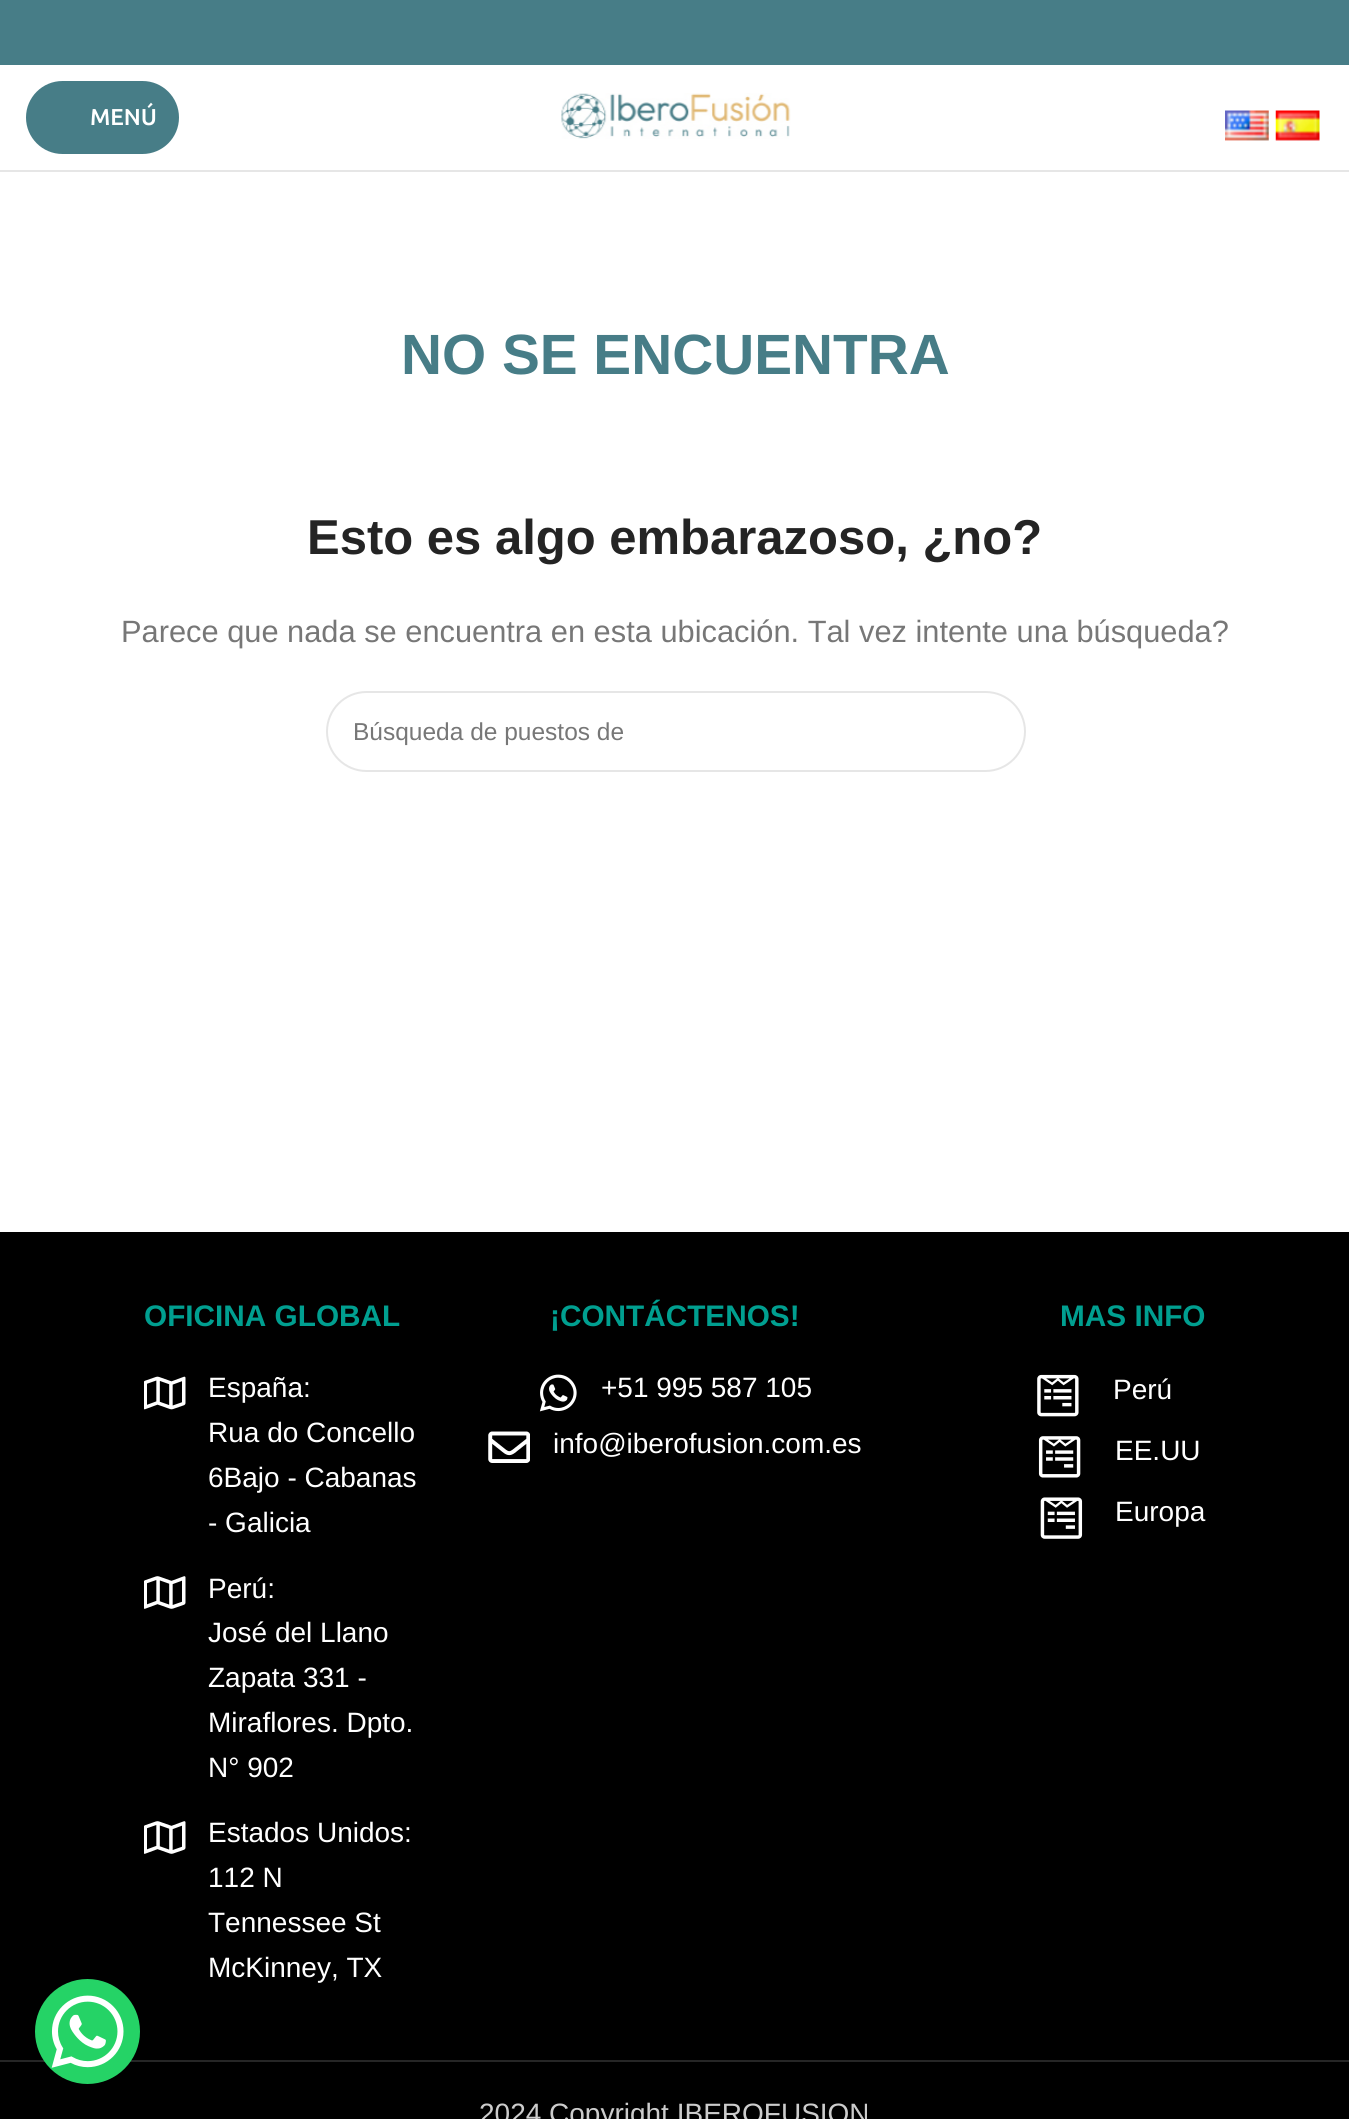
#include <cairo.h>
#include <math.h>
#include <stddef.h>

typedef struct { double x, y; const char *s; } line_t;

static void ink(cairo_t *ctx, unsigned color) {
    cairo_set_source_rgb(ctx, (color >> 16) / 255.0, (color >> 8 & 255) / 255.0, (color & 255) / 255.0);
}

static void round_path(cairo_t *ctx, double x, double y, double w, double h, double r) {
    cairo_new_sub_path(ctx);
    cairo_arc(ctx, x + w - r, y + h - r, r, 0, M_PI / 2);
    cairo_arc(ctx, x + r, y + h - r, r, M_PI / 2, M_PI);
    cairo_arc(ctx, x + r, y + r, r, M_PI, 1.5 * M_PI);
    cairo_arc(ctx, x + w - r, y + r, r, 1.5 * M_PI, 2 * M_PI);
    cairo_close_path(ctx);
}

static void paste(cairo_t *ctx, const char *path, double x, double y, double w, double h) {
    cairo_surface_t *image = cairo_image_surface_create_from_png(path);
    cairo_save(ctx);
    cairo_set_source_surface(ctx, image, x, y);
    cairo_rectangle(ctx, x, y, w, h);
    cairo_fill(ctx);
    cairo_restore(ctx);
    cairo_surface_destroy(image);
}

int main(void) {
    cairo_surface_t *surface = cairo_image_surface_create(CAIRO_FORMAT_RGB24, 1349, 2119);
    cairo_t *ctx = cairo_create(surface);
    cairo_font_options_t *options = cairo_font_options_create();
    cairo_font_options_set_hint_metrics(options, CAIRO_HINT_METRICS_OFF);
    cairo_font_options_set_hint_style(options, CAIRO_HINT_STYLE_NONE);
    cairo_set_font_options(ctx, options);
    cairo_set_miter_limit(ctx, 4);
    ink(ctx, 0xFFFFFF);
    cairo_paint(ctx);
    ink(ctx, 0x000000);
    cairo_rectangle(ctx, 0, 1232, 1349, 887);
    cairo_fill(ctx);
    ink(ctx, 0x262626);
    cairo_rectangle(ctx, 0, 2060, 1349, 2);
    cairo_fill(ctx);
    ink(ctx, 0x25D366);
    cairo_arc(ctx, 87.5, 2031.5, 52.5, 0, 2 * M_PI);
    cairo_fill(ctx);
    paste(ctx, "media/1.png", 51, 1995, 73, 73);
    ink(ctx, 0x477D87);
    cairo_rectangle(ctx, 0, 0, 1349, 65);
    cairo_fill(ctx);
    ink(ctx, 0xE6E6E6);
    cairo_rectangle(ctx, 0, 170, 1349, 2);
    cairo_fill(ctx);
    ink(ctx, 0x477D87);
    round_path(ctx, 26, 81, 153, 73, 36.5);
    cairo_fill(ctx);
    cairo_select_font_face(ctx, "Ubuntu Medium", CAIRO_FONT_SLANT_NORMAL, CAIRO_FONT_WEIGHT_NORMAL);
    cairo_set_font_size(ctx, 23);
    ink(ctx, 0xFFFFFF);
    cairo_move_to(ctx, 90, 125);
    cairo_show_text(ctx, "MENÚ");
    paste(ctx, "media/2.png", 561, 93, 230, 46);
    paste(ctx, "media/3.png", 1225, 110, 44, 31);
    paste(ctx, "media/4.png", 1275, 110, 45, 31);
    cairo_select_font_face(ctx, "Liberation Sans", CAIRO_FONT_SLANT_NORMAL, CAIRO_FONT_WEIGHT_BOLD);
    cairo_set_font_size(ctx, 56.75);
    ink(ctx, 0x477D87);
    cairo_move_to(ctx, 401, 374);
    cairo_show_text(ctx, "NO SE ENCUENTRA");
    cairo_set_font_size(ctx, 49);
    ink(ctx, 0x242424);
    cairo_move_to(ctx, 307, 554);
    cairo_show_text(ctx, "Esto es algo embarazoso, ¿no?");
    cairo_select_font_face(ctx, "Liberation Sans", CAIRO_FONT_SLANT_NORMAL, CAIRO_FONT_WEIGHT_NORMAL);
    cairo_set_font_size(ctx, 30.8);
    ink(ctx, 0x777777);
    cairo_move_to(ctx, 121, 642);
    cairo_show_text(ctx, "Parece que nada se encuentra en esta ubicación. Tal vez intente una búsqueda?");
    round_path(ctx, 327, 692, 698, 79, 39.5);
    ink(ctx, 0xE6E6E6);
    cairo_stroke(ctx);
    cairo_set_font_size(ctx, 24.5);
    ink(ctx, 0x777777);
    cairo_move_to(ctx, 353, 740);
    cairo_show_text(ctx, "Búsqueda de puestos de");
    cairo_select_font_face(ctx, "Liberation Sans", CAIRO_FONT_SLANT_NORMAL, CAIRO_FONT_WEIGHT_BOLD);
    cairo_set_font_size(ctx, 29.75);
    ink(ctx, 0x009F90);
    cairo_move_to(ctx, 144, 1326);
    cairo_show_text(ctx, "OFICINA GLOBAL");
    paste(ctx, "media/5.png", 144, 1376, 42, 34);
    cairo_select_font_face(ctx, "Liberation Sans", CAIRO_FONT_SLANT_NORMAL, CAIRO_FONT_WEIGHT_NORMAL);
    cairo_set_font_size(ctx, 28);
    ink(ctx, 0xFFFFFF);
    {
        static const line_t items[] = {
            {208, 1397, "España:"},
            {208, 1442, "Rua do Concello"},
            {208, 1487, "6Bajo - Cabanas"},
            {208, 1532, "- Galicia"},
        };
        for (size_t i = 0; i < sizeof items / sizeof *items; i++) {
            cairo_move_to(ctx, items[i].x, items[i].y);
            cairo_show_text(ctx, items[i].s);
        }
    }
    paste(ctx, "media/6.png", 144, 1576, 42, 33);
    {
        static const line_t items[] = {
            {208, 1598, "Perú:"},
            {208, 1642, "José del Llano"},
            {208, 1687, "Zapata 331 -"},
            {208, 1732, "Miraflores. Dpto."},
            {208, 1777, "N° 902"},
        };
        for (size_t i = 0; i < sizeof items / sizeof *items; i++) {
            cairo_move_to(ctx, items[i].x, items[i].y);
            cairo_show_text(ctx, items[i].s);
        }
    }
    paste(ctx, "media/6.png", 144, 1821, 42, 33);
    {
        static const line_t items[] = {
            {208, 1842, "Estados Unidos:"},
            {208, 1887, "112 N"},
            {208, 1932, "Tennessee St"},
            {208, 1977, "McKinney, TX"},
        };
        for (size_t i = 0; i < sizeof items / sizeof *items; i++) {
            cairo_move_to(ctx, items[i].x, items[i].y);
            cairo_show_text(ctx, items[i].s);
        }
    }
    cairo_select_font_face(ctx, "Liberation Sans", CAIRO_FONT_SLANT_NORMAL, CAIRO_FONT_WEIGHT_BOLD);
    cairo_set_font_size(ctx, 29.75);
    ink(ctx, 0x009F90);
    cairo_move_to(ctx, 550, 1326);
    cairo_show_text(ctx, "¡CONTÁCTENOS!");
    paste(ctx, "media/7.png", 539, 1374, 38, 38);
    cairo_select_font_face(ctx, "Liberation Sans", CAIRO_FONT_SLANT_NORMAL, CAIRO_FONT_WEIGHT_NORMAL);
    cairo_set_font_size(ctx, 28);
    ink(ctx, 0xFFFFFF);
    cairo_move_to(ctx, 601, 1397);
    cairo_show_text(ctx, "+51 995 587 105");
    paste(ctx, "media/8.png", 488, 1431, 42, 32);
    cairo_move_to(ctx, 553, 1453);
    cairo_show_text(ctx, "info@iberofusion.com.es");
    cairo_select_font_face(ctx, "Liberation Sans", CAIRO_FONT_SLANT_NORMAL, CAIRO_FONT_WEIGHT_BOLD);
    cairo_set_font_size(ctx, 29.75);
    ink(ctx, 0x009F90);
    cairo_move_to(ctx, 1060, 1326);
    cairo_show_text(ctx, "MAS INFO");
    paste(ctx, "media/9.png", 1037, 1374, 42, 43);
    cairo_select_font_face(ctx, "Liberation Sans", CAIRO_FONT_SLANT_NORMAL, CAIRO_FONT_WEIGHT_NORMAL);
    cairo_set_font_size(ctx, 28);
    ink(ctx, 0xFFFFFF);
    cairo_move_to(ctx, 1113, 1399);
    cairo_show_text(ctx, "Perú");
    paste(ctx, "media/10.png", 1038, 1436, 43, 42);
    cairo_move_to(ctx, 1115, 1460);
    cairo_show_text(ctx, "EE.UU");
    paste(ctx, "media/11.png", 1040, 1497, 43, 42);
    cairo_move_to(ctx, 1115, 1521);
    cairo_show_text(ctx, "Europa");
    ink(ctx, 0xCCCCCC);
    cairo_move_to(ctx, 479, 2123);
    cairo_show_text(ctx, "2024 Copyright IBEROFUSION");
    cairo_surface_write_to_png(surface, "image.png");
    cairo_font_options_destroy(options);
    cairo_destroy(ctx);
    cairo_surface_destroy(surface);
    return 0;
}
